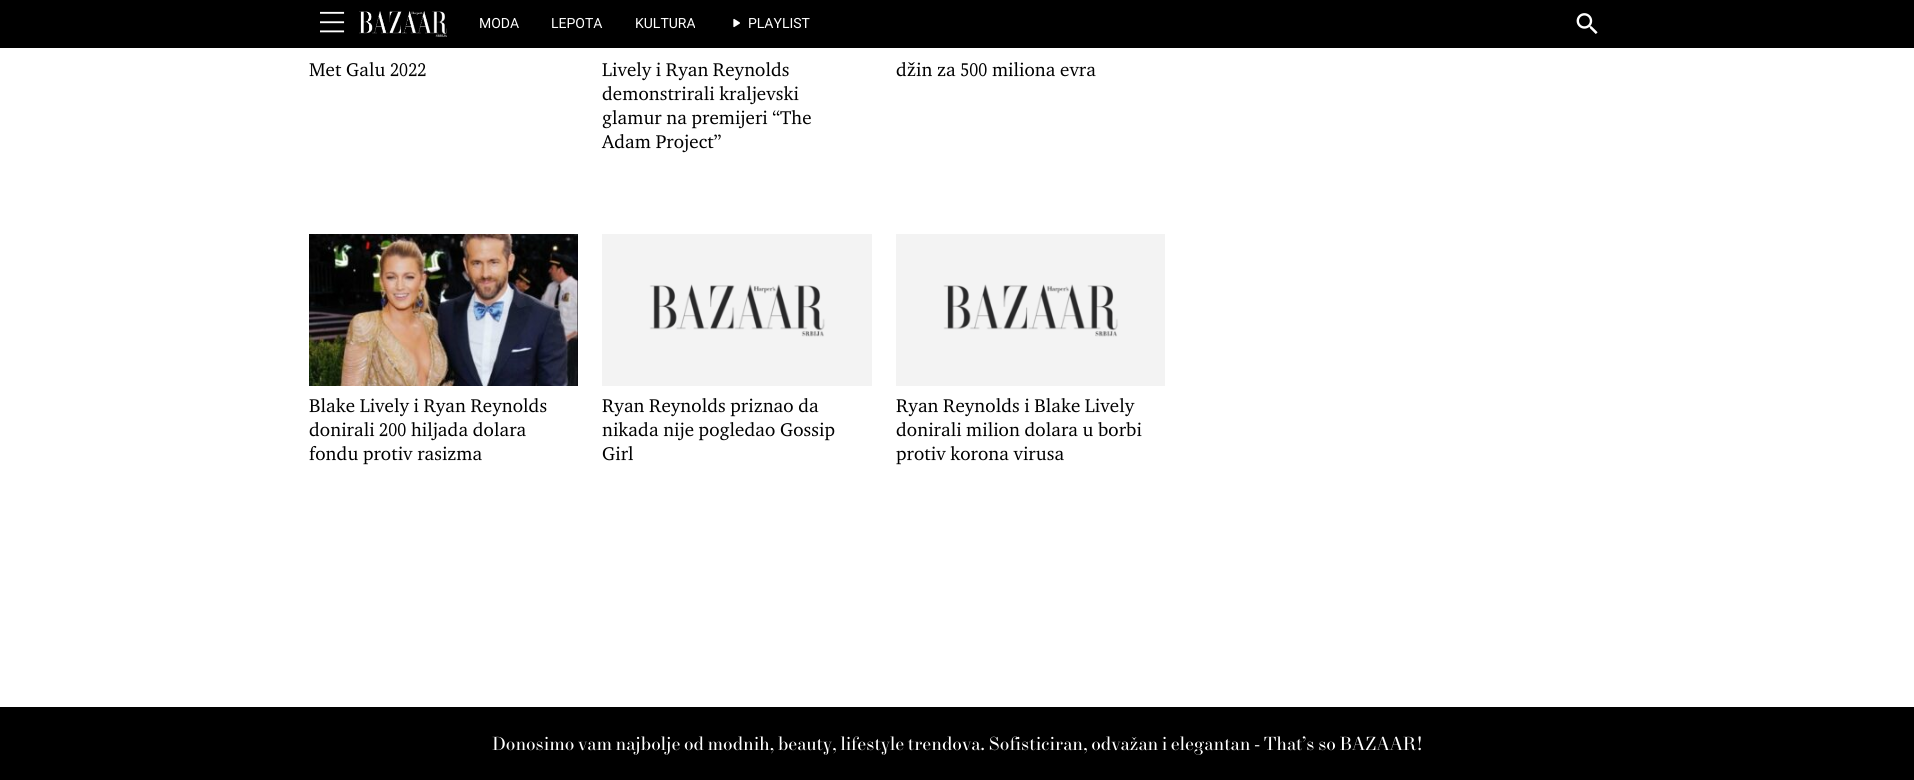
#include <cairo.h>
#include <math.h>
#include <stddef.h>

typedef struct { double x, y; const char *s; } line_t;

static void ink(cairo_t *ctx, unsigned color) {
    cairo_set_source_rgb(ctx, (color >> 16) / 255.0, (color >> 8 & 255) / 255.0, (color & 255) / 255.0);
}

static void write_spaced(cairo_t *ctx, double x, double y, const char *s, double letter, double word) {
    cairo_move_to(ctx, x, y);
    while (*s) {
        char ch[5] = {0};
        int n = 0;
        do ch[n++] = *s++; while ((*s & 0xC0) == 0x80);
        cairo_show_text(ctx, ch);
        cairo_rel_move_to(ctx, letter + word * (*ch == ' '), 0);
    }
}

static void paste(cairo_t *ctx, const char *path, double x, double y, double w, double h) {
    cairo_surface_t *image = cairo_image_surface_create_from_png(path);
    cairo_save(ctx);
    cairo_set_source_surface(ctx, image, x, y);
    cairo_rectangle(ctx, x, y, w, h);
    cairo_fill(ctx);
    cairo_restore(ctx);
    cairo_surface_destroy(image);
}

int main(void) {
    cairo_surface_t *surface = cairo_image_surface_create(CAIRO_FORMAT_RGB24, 1914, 780);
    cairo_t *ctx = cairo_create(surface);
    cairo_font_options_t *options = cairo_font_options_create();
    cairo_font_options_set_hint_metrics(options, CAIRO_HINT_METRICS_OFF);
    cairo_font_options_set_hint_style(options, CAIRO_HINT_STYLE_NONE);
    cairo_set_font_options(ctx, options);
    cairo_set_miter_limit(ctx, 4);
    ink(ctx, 0xFFFFFF);
    cairo_paint(ctx);
    ink(ctx, 0x000000);
    cairo_rectangle(ctx, 0, 0, 1914, 48);
    cairo_fill(ctx);
    paste(ctx, "media/1.png", 320, 11, 25, 22);
    paste(ctx, "media/2.png", 359, 11, 88, 26);
    cairo_select_font_face(ctx, "Roboto", CAIRO_FONT_SLANT_NORMAL, CAIRO_FONT_WEIGHT_NORMAL);
    cairo_set_font_size(ctx, 14);
    ink(ctx, 0xFFFFFF);
    {
        static const line_t items[] = {
            {479, 28, "MODA"},
            {551, 28, "LEPOTA"},
            {635, 28, "KULTURA"},
        };
        for (size_t i = 0; i < sizeof items / sizeof *items; i++) {
            cairo_move_to(ctx, items[i].x, items[i].y);
            cairo_show_text(ctx, items[i].s);
        }
    }
    paste(ctx, "media/3.png", 733, 18, 7, 10);
    cairo_move_to(ctx, 748, 28);
    cairo_show_text(ctx, "PLAYLIST");
    paste(ctx, "media/4.png", 1576, 13, 22, 21);
    cairo_select_font_face(ctx, "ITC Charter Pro", CAIRO_FONT_SLANT_NORMAL, CAIRO_FONT_WEIGHT_NORMAL);
    cairo_set_font_size(ctx, 20);
    ink(ctx, 0x000000);
    {
        static const line_t items[] = {
            {309, 76, "Met Galu 2022"},
            {602, 76, "Lively i Ryan Reynolds"},
            {602, 100, "demonstrirali kraljevski"},
            {602, 124, "glamur na premijeri “The"},
            {602, 148, "Adam Project”"},
            {896, 76, "d"},
        };
        for (size_t i = 0; i < sizeof items / sizeof *items; i++) {
            write_spaced(ctx, items[i].x, items[i].y, items[i].s, 0.1, 0);
        }
    }
    cairo_select_font_face(ctx, "Liberation Serif", CAIRO_FONT_SLANT_NORMAL, CAIRO_FONT_WEIGHT_NORMAL);
    write_spaced(ctx, 907, 76, "ž", 0.1, 0);
    cairo_select_font_face(ctx, "ITC Charter Pro", CAIRO_FONT_SLANT_NORMAL, CAIRO_FONT_WEIGHT_NORMAL);
    write_spaced(ctx, 916, 76, "in za 500 miliona evra", 0.1, 0);
    paste(ctx, "media/5.png", 309, 234, 269, 152);
    {
        static const line_t items[] = {
            {309, 412, "Blake Lively i Ryan Reynolds"},
            {309, 436, "donirali 200 hiljada dolara"},
            {309, 460, "fondu protiv rasizma"},
        };
        for (size_t i = 0; i < sizeof items / sizeof *items; i++) {
            write_spaced(ctx, items[i].x, items[i].y, items[i].s, 0.1, 0);
        }
    }
    paste(ctx, "media/6.png", 602, 234, 270, 152);
    {
        static const line_t items[] = {
            {602, 412, "Ryan Reynolds priznao da"},
            {602, 436, "nikada nije pogledao Gossip"},
            {602, 460, "Girl"},
        };
        for (size_t i = 0; i < sizeof items / sizeof *items; i++) {
            write_spaced(ctx, items[i].x, items[i].y, items[i].s, 0.1, 0);
        }
    }
    paste(ctx, "media/7.png", 896, 234, 269, 152);
    {
        static const line_t items[] = {
            {896, 412, "Ryan Reynolds i Blake Lively"},
            {896, 436, "donirali milion dolara u borbi"},
            {896, 460, "protiv korona virusa"},
        };
        for (size_t i = 0; i < sizeof items / sizeof *items; i++) {
            write_spaced(ctx, items[i].x, items[i].y, items[i].s, 0.1, 0);
        }
    }
    cairo_rectangle(ctx, 0, 707, 1914, 73);
    cairo_fill(ctx);
    cairo_select_font_face(ctx, "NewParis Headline", CAIRO_FONT_SLANT_NORMAL, CAIRO_FONT_WEIGHT_NORMAL);
    cairo_set_font_size(ctx, 19);
    ink(ctx, 0xFFFFFF);
    cairo_move_to(ctx, 492, 750);
    cairo_show_text(ctx, "Donosimo vam najbolje od modnih, beauty, lifestyle trendova. Sofisticiran, odvažan i elegantan - That’s so BAZAAR!");
    cairo_surface_write_to_png(surface, "image.png");
    cairo_font_options_destroy(options);
    cairo_destroy(ctx);
    cairo_surface_destroy(surface);
    return 0;
}
